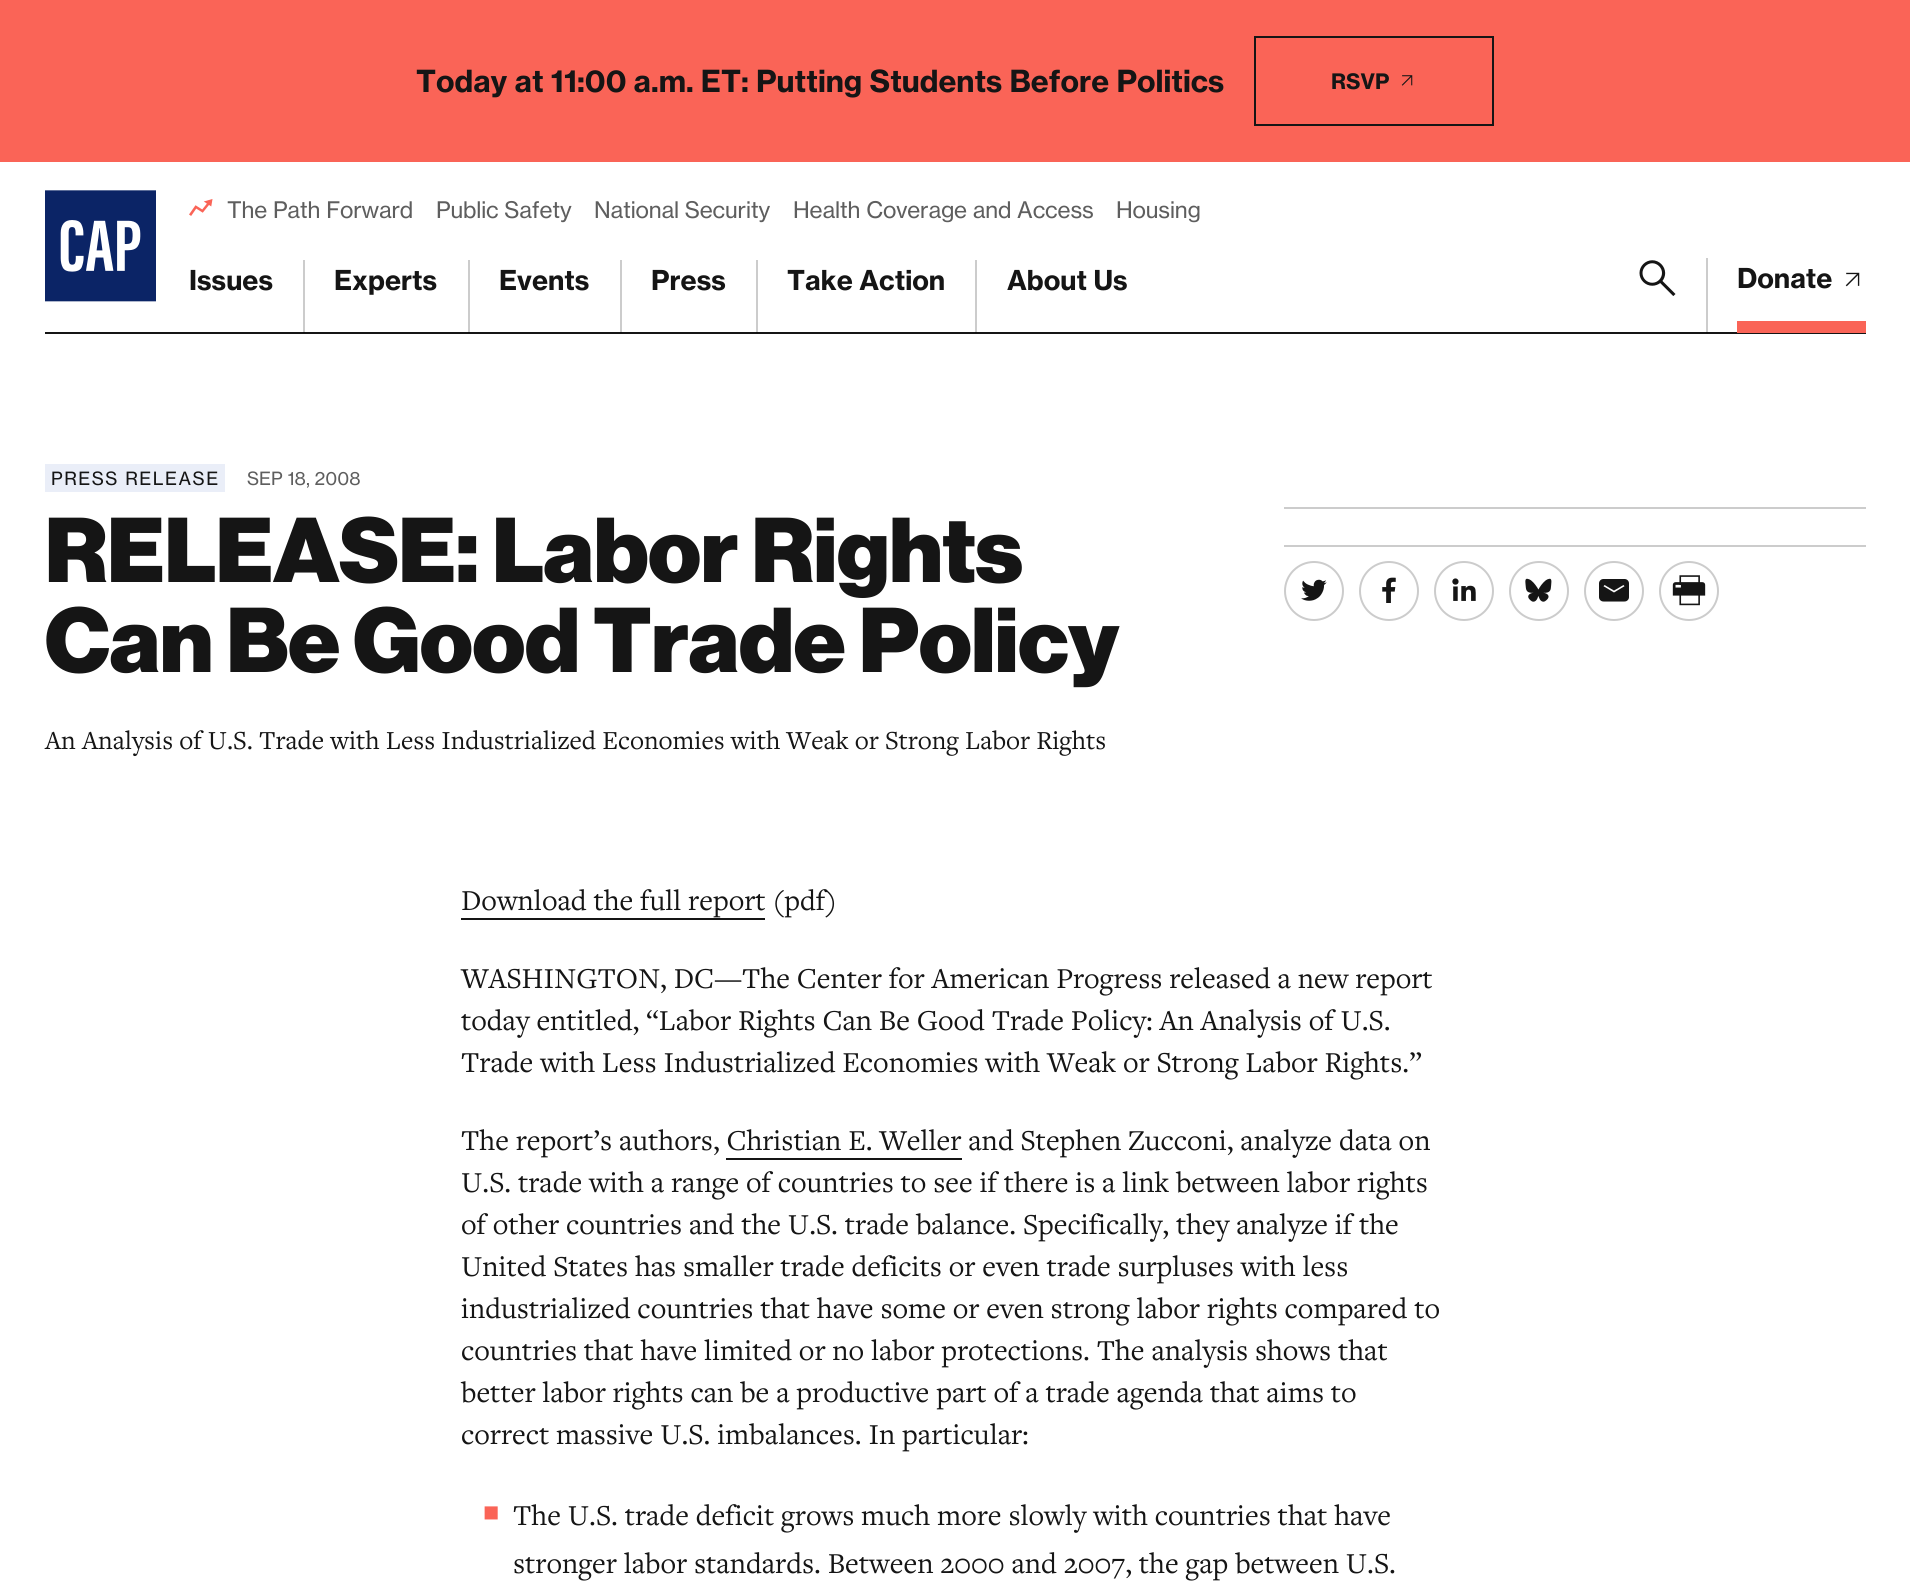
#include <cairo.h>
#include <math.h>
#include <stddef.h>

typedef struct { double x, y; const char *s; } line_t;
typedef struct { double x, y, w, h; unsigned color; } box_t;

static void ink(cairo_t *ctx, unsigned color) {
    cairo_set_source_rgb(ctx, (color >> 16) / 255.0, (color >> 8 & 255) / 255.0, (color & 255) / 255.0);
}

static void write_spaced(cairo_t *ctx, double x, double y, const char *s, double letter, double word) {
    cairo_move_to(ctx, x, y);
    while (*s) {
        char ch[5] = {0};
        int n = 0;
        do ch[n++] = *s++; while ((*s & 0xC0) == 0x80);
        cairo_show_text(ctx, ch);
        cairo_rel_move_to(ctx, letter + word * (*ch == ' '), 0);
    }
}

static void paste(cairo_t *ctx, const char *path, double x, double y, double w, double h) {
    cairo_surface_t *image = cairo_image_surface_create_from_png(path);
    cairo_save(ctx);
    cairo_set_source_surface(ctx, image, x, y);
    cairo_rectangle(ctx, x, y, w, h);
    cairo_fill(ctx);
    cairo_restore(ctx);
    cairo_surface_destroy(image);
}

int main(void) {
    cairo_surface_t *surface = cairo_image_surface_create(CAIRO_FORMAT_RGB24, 1910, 1594);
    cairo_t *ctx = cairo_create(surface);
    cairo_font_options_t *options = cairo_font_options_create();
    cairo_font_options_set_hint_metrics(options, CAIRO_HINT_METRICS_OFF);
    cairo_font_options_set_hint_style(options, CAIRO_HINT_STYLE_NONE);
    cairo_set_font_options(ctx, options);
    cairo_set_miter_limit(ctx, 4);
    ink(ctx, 0xFFFFFF);
    cairo_paint(ctx);
    {
        static const box_t items[] = {
            {1706, 258, 2, 75, 0xCCCCCC},
            {975, 260, 2, 73, 0xCCCCCC},
            {756, 260, 2, 73, 0xCCCCCC},
            {620, 260, 2, 73, 0xCCCCCC},
            {468, 260, 2, 73, 0xCCCCCC},
            {303, 260, 2, 73, 0xCCCCCC},
            {0, 0, 1910, 162, 0xFA6457},
        };
        for (size_t i = 0; i < sizeof items / sizeof *items; i++) {
            ink(ctx, items[i].color);
            cairo_rectangle(ctx, items[i].x, items[i].y, items[i].w, items[i].h);
            cairo_fill(ctx);
        }
    }
    cairo_select_font_face(ctx, "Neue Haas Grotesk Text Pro", CAIRO_FONT_SLANT_NORMAL, CAIRO_FONT_WEIGHT_BOLD);
    cairo_set_font_size(ctx, 30);
    ink(ctx, 0x151515);
    cairo_move_to(ctx, 416, 92);
    cairo_show_text(ctx, "Today at 11:00 a.m. ET: Putting Students Before Politics");
    cairo_rectangle(ctx, 1255, 37, 238, 88);
    cairo_stroke(ctx);
    cairo_set_font_size(ctx, 21);
    cairo_move_to(ctx, 1331, 89);
    cairo_show_text(ctx, "RSVP");
    paste(ctx, "media/1.png", 1401, 75, 12, 11);
    {
        static const box_t items[] = {
            {45, 332, 1821, 2, 0x151515},
            {1706, 332, 2, 1, 0x111111},
            {975, 332, 2, 1, 0x111111},
            {756, 332, 2, 1, 0x111111},
            {620, 332, 2, 1, 0x111111},
            {468, 332, 2, 1, 0x111111},
            {303, 332, 2, 1, 0x111111},
        };
        for (size_t i = 0; i < sizeof items / sizeof *items; i++) {
            ink(ctx, items[i].color);
            cairo_rectangle(ctx, items[i].x, items[i].y, items[i].w, items[i].h);
            cairo_fill(ctx);
        }
    }
    paste(ctx, "media/2.png", 45, 190, 111, 112);
    paste(ctx, "media/3.png", 189, 199, 24, 17);
    cairo_select_font_face(ctx, "Neue Haas Grotesk Text Pro", CAIRO_FONT_SLANT_NORMAL, CAIRO_FONT_WEIGHT_NORMAL);
    cairo_set_font_size(ctx, 22.5);
    ink(ctx, 0x5E5E5E);
    {
        static const line_t items[] = {
            {227, 218, "The Path Forward"},
            {436, 218, "Public Safety"},
            {594, 218, "National Security"},
            {793, 218, "Health Coverage and Access"},
            {1116, 218, "Housing"},
        };
        for (size_t i = 0; i < sizeof items / sizeof *items; i++) {
            write_spaced(ctx, items[i].x, items[i].y, items[i].s, -0.15, 0);
        }
    }
    cairo_select_font_face(ctx, "Neue Haas Grotesk Text Pro", CAIRO_FONT_SLANT_NORMAL, CAIRO_FONT_WEIGHT_BOLD);
    cairo_set_font_size(ctx, 27);
    ink(ctx, 0x151515);
    {
        static const line_t items[] = {
            {189, 290, "Issues"},
            {334, 290, "Experts"},
            {499, 290, "Events"},
            {651, 290, "Press"},
            {787, 290, "Take Action"},
            {1007, 290, "About Us"},
        };
        for (size_t i = 0; i < sizeof items / sizeof *items; i++) {
            cairo_move_to(ctx, items[i].x, items[i].y);
            cairo_show_text(ctx, items[i].s);
        }
    }
    paste(ctx, "media/4.png", 1639, 260, 37, 36);
    cairo_move_to(ctx, 1737, 288);
    cairo_show_text(ctx, "Donate");
    paste(ctx, "media/5.png", 1845, 272, 15, 15);
    ink(ctx, 0xFA6457);
    cairo_rectangle(ctx, 1737, 321, 129, 12);
    cairo_fill(ctx);
    ink(ctx, 0xEAEEF8);
    cairo_rectangle(ctx, 45, 464, 180, 28);
    cairo_fill(ctx);
    cairo_select_font_face(ctx, "Neue Haas Grotesk Text Pro", CAIRO_FONT_SLANT_NORMAL, CAIRO_FONT_WEIGHT_NORMAL);
    cairo_set_font_size(ctx, 18);
    ink(ctx, 0x151515);
    write_spaced(ctx, 51, 485, "PRESS RELEASE", 1.5, 0);
    ink(ctx, 0x5E5E5E);
    cairo_move_to(ctx, 247, 485);
    cairo_show_text(ctx, "SEP 18, 2008");
    cairo_select_font_face(ctx, "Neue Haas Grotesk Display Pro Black", CAIRO_FONT_SLANT_NORMAL, CAIRO_FONT_WEIGHT_NORMAL);
    cairo_set_font_size(ctx, 90);
    ink(ctx, 0x151515);
    cairo_move_to(ctx, 45, 582);
    cairo_show_text(ctx, "RELEASE: Labor Rights");
    cairo_move_to(ctx, 45, 672);
    cairo_show_text(ctx, "Can Be Good Trade Policy");
    cairo_select_font_face(ctx, "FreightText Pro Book", CAIRO_FONT_SLANT_NORMAL, CAIRO_FONT_WEIGHT_NORMAL);
    cairo_set_font_size(ctx, 27);
    cairo_move_to(ctx, 45, 749);
    cairo_show_text(ctx, "An Analysis of U.S. Trade with Less Industrialized Economies with Weak or Strong Labor Rights");
    ink(ctx, 0xCCCCCC);
    cairo_rectangle(ctx, 1284, 507, 582, 2);
    cairo_fill(ctx);
    cairo_rectangle(ctx, 1284, 545, 582, 2);
    cairo_fill(ctx);
    cairo_arc(ctx, 1314, 591, 29, 0, 2 * M_PI);
    cairo_stroke(ctx);
    paste(ctx, "media/6.png", 1301, 579, 26, 22);
    cairo_arc(ctx, 1389, 591, 29, 0, 2 * M_PI);
    cairo_stroke(ctx);
    paste(ctx, "media/7.png", 1382, 577, 14, 26);
    cairo_arc(ctx, 1464, 591, 29, 0, 2 * M_PI);
    cairo_stroke(ctx);
    paste(ctx, "media/8.png", 1452, 578, 24, 23);
    cairo_arc(ctx, 1539, 591, 29, 0, 2 * M_PI);
    cairo_stroke(ctx);
    paste(ctx, "media/9.png", 1525, 578, 27, 24);
    cairo_arc(ctx, 1614, 591, 29, 0, 2 * M_PI);
    cairo_stroke(ctx);
    paste(ctx, "media/10.png", 1599, 579, 30, 23);
    cairo_arc(ctx, 1689, 591, 29, 0, 2 * M_PI);
    cairo_stroke(ctx);
    paste(ctx, "media/11.png", 1672, 575, 34, 31);
    cairo_set_font_size(ctx, 30);
    ink(ctx, 0x151515);
    cairo_move_to(ctx, 461, 910);
    cairo_show_text(ctx, "Download the full report (pdf)");
    cairo_rectangle(ctx, 461, 918, 304, 2);
    cairo_fill(ctx);
    {
        static const line_t items[] = {
            {461, 988, "WASHINGTON, DC—The Center for American Progress released a new report"},
            {461, 1030, "today entitled, “Labor Rights Can Be Good Trade Policy: An Analysis of U.S."},
            {461, 1072, "Trade with Less Industrialized Economies with Weak or Strong Labor Rights.”"},
            {461, 1150, "The report’s authors, Christian E. Weller and Stephen Zucconi, analyze data on"},
        };
        for (size_t i = 0; i < sizeof items / sizeof *items; i++) {
            cairo_move_to(ctx, items[i].x, items[i].y);
            cairo_show_text(ctx, items[i].s);
        }
    }
    cairo_rectangle(ctx, 726, 1158, 236, 2);
    cairo_fill(ctx);
    {
        static const line_t items[] = {
            {461, 1192, "U.S. trade with a range of countries to see if there is a link between labor rights"},
            {461, 1234, "of other countries and the U.S. trade balance. Specifically, they analyze if the"},
            {461, 1276, "United States has smaller trade deficits or even trade surpluses with less"},
            {461, 1318, "industrialized countries that have some or even strong labor rights compared to"},
            {461, 1360, "countries that have limited or no labor protections. The analysis shows that"},
            {461, 1402, "better labor rights can be a productive part of a trade agenda that aims to"},
            {461, 1444, "correct massive U.S. imbalances. In particular:"},
        };
        for (size_t i = 0; i < sizeof items / sizeof *items; i++) {
            cairo_move_to(ctx, items[i].x, items[i].y);
            cairo_show_text(ctx, items[i].s);
        }
    }
    cairo_select_font_face(ctx, "Liberation Sans", CAIRO_FONT_SLANT_NORMAL, CAIRO_FONT_WEIGHT_NORMAL);
    cairo_set_font_size(ctx, 27);
    ink(ctx, 0xFA6457);
    cairo_move_to(ctx, 483, 1521);
    cairo_show_text(ctx, "■");
    cairo_select_font_face(ctx, "FreightText Pro Book", CAIRO_FONT_SLANT_NORMAL, CAIRO_FONT_WEIGHT_NORMAL);
    cairo_set_font_size(ctx, 30);
    ink(ctx, 0x151515);
    cairo_move_to(ctx, 513, 1525);
    cairo_show_text(ctx, "The U.S. trade deficit grows much more slowly with countries that have");
    cairo_move_to(ctx, 513, 1573);
    cairo_show_text(ctx, "stronger labor standards. Between 2000 and 2007, the gap between U.S.");
    cairo_surface_write_to_png(surface, "image.png");
    cairo_font_options_destroy(options);
    cairo_destroy(ctx);
    cairo_surface_destroy(surface);
    return 0;
}
